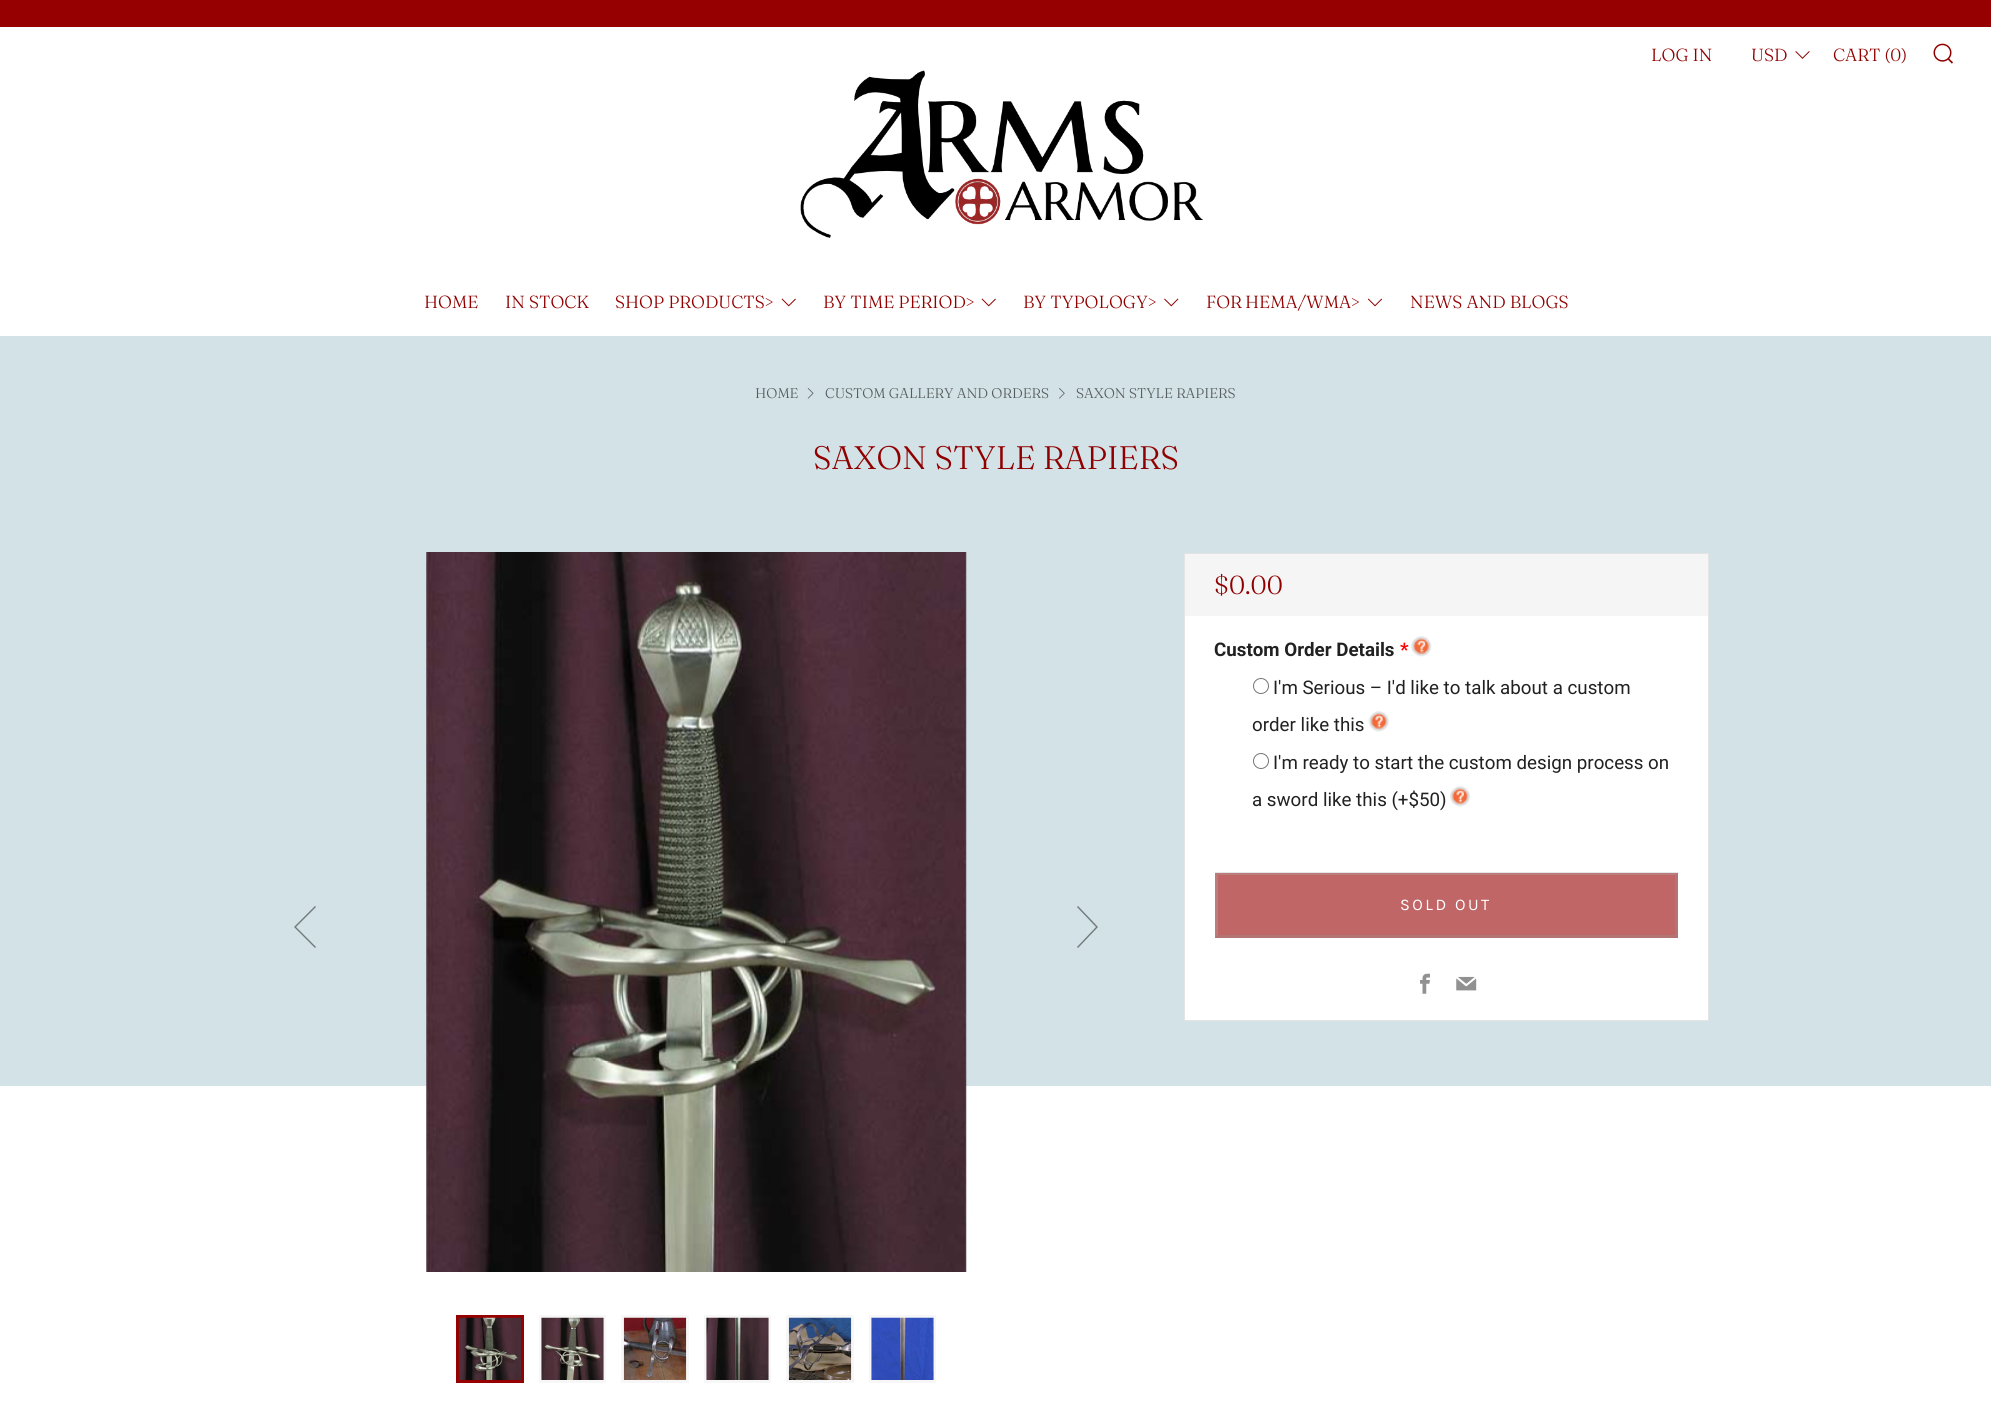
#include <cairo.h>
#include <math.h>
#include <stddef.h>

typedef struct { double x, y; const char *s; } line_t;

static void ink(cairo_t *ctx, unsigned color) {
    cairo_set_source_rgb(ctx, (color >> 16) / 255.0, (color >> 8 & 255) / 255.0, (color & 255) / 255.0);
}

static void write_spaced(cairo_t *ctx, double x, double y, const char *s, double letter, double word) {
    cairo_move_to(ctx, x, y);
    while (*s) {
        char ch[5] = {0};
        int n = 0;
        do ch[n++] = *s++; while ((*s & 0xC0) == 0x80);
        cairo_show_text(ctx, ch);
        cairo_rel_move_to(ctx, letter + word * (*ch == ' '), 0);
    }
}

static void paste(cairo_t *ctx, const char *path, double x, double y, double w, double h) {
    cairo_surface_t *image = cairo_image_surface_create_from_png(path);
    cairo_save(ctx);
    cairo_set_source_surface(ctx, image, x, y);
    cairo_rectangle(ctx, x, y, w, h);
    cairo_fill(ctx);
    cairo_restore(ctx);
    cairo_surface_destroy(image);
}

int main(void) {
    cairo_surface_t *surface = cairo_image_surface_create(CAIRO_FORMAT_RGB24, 1991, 1409);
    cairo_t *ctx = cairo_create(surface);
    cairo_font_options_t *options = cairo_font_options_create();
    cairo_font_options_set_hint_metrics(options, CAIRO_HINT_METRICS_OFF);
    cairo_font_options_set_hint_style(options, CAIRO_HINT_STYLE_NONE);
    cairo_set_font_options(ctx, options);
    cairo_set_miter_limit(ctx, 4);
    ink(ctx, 0xFFFFFF);
    cairo_paint(ctx);
    ink(ctx, 0x970000);
    cairo_rectangle(ctx, 0, 0, 1991, 27);
    cairo_fill(ctx);
    cairo_select_font_face(ctx, "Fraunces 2 Light", CAIRO_FONT_SLANT_NORMAL, CAIRO_FONT_WEIGHT_NORMAL);
    cairo_set_font_size(ctx, 17.5);
    ink(ctx, 0x900000);
    cairo_move_to(ctx, 1651, 61);
    cairo_show_text(ctx, "LOG IN");
    cairo_move_to(ctx, 1751, 61);
    cairo_show_text(ctx, "USD");
    paste(ctx, "media/1.png", 1795, 51, 15, 8);
    cairo_move_to(ctx, 1833, 61);
    cairo_show_text(ctx, "CART (0)");
    paste(ctx, "media/2.png", 1933, 43, 20, 21);
    {
        static const line_t items[] = {
            {424, 308, "HOME"},
            {505, 308, "IN STOCK"},
            {615, 308, "SHOP PRODUCTS>"},
        };
        for (size_t i = 0; i < sizeof items / sizeof *items; i++) {
            cairo_move_to(ctx, items[i].x, items[i].y);
            cairo_show_text(ctx, items[i].s);
        }
    }
    paste(ctx, "media/3.png", 781, 298, 15, 9);
    cairo_move_to(ctx, 823, 308);
    cairo_show_text(ctx, "BY TIME PERIOD>");
    paste(ctx, "media/3.png", 981, 298, 15, 9);
    cairo_move_to(ctx, 1023, 308);
    cairo_show_text(ctx, "BY TYPOLOGY>");
    paste(ctx, "media/4.png", 1164, 298, 15, 9);
    write_spaced(ctx, 1206, 308, "FOR HEMA/WMA>", 0, -1);
    paste(ctx, "media/5.png", 1367, 298, 16, 9);
    cairo_move_to(ctx, 1410, 308);
    cairo_show_text(ctx, "NEWS AND BLOGS");
    paste(ctx, "media/6.png", 800, 70, 403, 168);
    ink(ctx, 0xD3E2E6);
    cairo_rectangle(ctx, 0, 336, 1991, 750);
    cairo_fill(ctx);
    cairo_set_font_size(ctx, 14);
    ink(ctx, 0x565B5C);
    cairo_move_to(ctx, 755, 398);
    cairo_show_text(ctx, "HOME");
    paste(ctx, "media/7.png", 807, 388, 7, 11);
    cairo_move_to(ctx, 825, 398);
    cairo_show_text(ctx, "CUSTOM GALLERY AND ORDERS");
    paste(ctx, "media/8.png", 1059, 388, 6, 11);
    cairo_move_to(ctx, 1076, 398);
    cairo_show_text(ctx, "SAXON STYLE RAPIERS");
    cairo_select_font_face(ctx, "Fraunces Light", CAIRO_FONT_SLANT_NORMAL, CAIRO_FONT_WEIGHT_NORMAL);
    cairo_set_font_size(ctx, 32.5);
    ink(ctx, 0x900000);
    cairo_move_to(ctx, 813, 469);
    cairo_show_text(ctx, "SAXON STYLE RAPIERS");
    ink(ctx, 0x727A7C);
    cairo_new_path(ctx);
    cairo_move_to(ctx, 316, 907);
    cairo_line_to(ctx, 315, 906);
    cairo_line_to(ctx, 294, 927);
    cairo_line_to(ctx, 315, 948);
    cairo_line_to(ctx, 316, 947);
    cairo_line_to(ctx, 296, 927);
    cairo_close_path(ctx);
    cairo_fill(ctx);
    paste(ctx, "media/9.png", 426, 552, 541, 720);
    cairo_new_path(ctx);
    cairo_move_to(ctx, 1077, 947);
    cairo_line_to(ctx, 1078, 948);
    cairo_line_to(ctx, 1098, 927);
    cairo_line_to(ctx, 1078, 906);
    cairo_line_to(ctx, 1077, 907);
    cairo_line_to(ctx, 1096, 927);
    cairo_close_path(ctx);
    cairo_fill(ctx);
    cairo_rectangle(ctx, 457.5, 1316.5, 65, 65);
    ink(ctx, 0x970000);
    cairo_set_line_width(ctx, 3);
    cairo_stroke(ctx);
    paste(ctx, "media/10.png", 458, 1317, 64, 63);
    ink(ctx, 0xF7F7F7);
    cairo_rectangle(ctx, 539, 1315, 67, 68);
    cairo_fill(ctx);
    paste(ctx, "media/11.png", 541, 1317, 63, 63);
    cairo_rectangle(ctx, 621, 1315, 68, 68);
    cairo_fill(ctx);
    paste(ctx, "media/12.png", 623, 1317, 64, 63);
    cairo_rectangle(ctx, 704, 1315, 67, 68);
    cairo_fill(ctx);
    paste(ctx, "media/13.png", 706, 1317, 63, 63);
    cairo_rectangle(ctx, 786, 1315, 68, 68);
    cairo_fill(ctx);
    paste(ctx, "media/14.png", 788, 1317, 64, 63);
    cairo_rectangle(ctx, 869, 1315, 67, 68);
    cairo_fill(ctx);
    paste(ctx, "media/15.png", 871, 1317, 63, 63);
    ink(ctx, 0xFFFFFF);
    cairo_rectangle(ctx, 1185, 616, 523, 404);
    cairo_fill(ctx);
    cairo_rectangle(ctx, 1184.5, 553.5, 524, 467);
    ink(ctx, 0xE4E4E4);
    cairo_set_line_width(ctx, 1);
    cairo_stroke(ctx);
    ink(ctx, 0xF5F5F5);
    cairo_rectangle(ctx, 1185, 554, 523, 62);
    cairo_fill(ctx);
    cairo_select_font_face(ctx, "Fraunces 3 Light", CAIRO_FONT_SLANT_NORMAL, CAIRO_FONT_WEIGHT_NORMAL);
    cairo_set_font_size(ctx, 26);
    ink(ctx, 0x900000);
    cairo_move_to(ctx, 1214, 594);
    cairo_show_text(ctx, "$0.00");
    cairo_select_font_face(ctx, "Roboto", CAIRO_FONT_SLANT_NORMAL, CAIRO_FONT_WEIGHT_BOLD);
    cairo_set_font_size(ctx, 18.75);
    ink(ctx, 0x212121);
    cairo_move_to(ctx, 1214, 656);
    cairo_show_text(ctx, "Custom Order Details");
    ink(ctx, 0xFF0000);
    cairo_move_to(ctx, 1400, 656);
    cairo_show_text(ctx, "*");
    paste(ctx, "media/16.png", 1411, 636, 21, 21);
    cairo_arc(ctx, 1261, 686, 7.5, 0, 2 * M_PI);
    ink(ctx, 0x767676);
    cairo_stroke(ctx);
    cairo_select_font_face(ctx, "Roboto", CAIRO_FONT_SLANT_NORMAL, CAIRO_FONT_WEIGHT_NORMAL);
    ink(ctx, 0x212121);
    cairo_move_to(ctx, 1273, 694);
    cairo_show_text(ctx, "I'm Serious – I'd like to talk about a custom");
    cairo_move_to(ctx, 1252, 731);
    cairo_show_text(ctx, "order like this");
    paste(ctx, "media/17.png", 1368, 711, 21, 21);
    cairo_arc(ctx, 1261, 761, 7.5, 0, 2 * M_PI);
    ink(ctx, 0x767676);
    cairo_stroke(ctx);
    ink(ctx, 0x212121);
    cairo_move_to(ctx, 1273, 769);
    cairo_show_text(ctx, "I'm ready to start the custom design process on");
    cairo_move_to(ctx, 1252, 806);
    cairo_show_text(ctx, "a sword like this (+$50)");
    paste(ctx, "media/18.png", 1450, 786, 20, 21);
    ink(ctx, 0xC16666);
    cairo_rectangle(ctx, 1215, 873, 463, 65);
    cairo_fill(ctx);
    cairo_set_source_rgba(ctx, 0.678, 0.678, 0.678, 0.3);
    cairo_new_path(ctx);
    cairo_move_to(ctx, 1215, 872);
    cairo_line_to(ctx, 1678, 872);
    cairo_line_to(ctx, 1675, 875);
    cairo_line_to(ctx, 1218, 875);
    cairo_close_path(ctx);
    cairo_fill(ctx);
    cairo_set_source_rgba(ctx, 0.584, 0.584, 0.584, 0.3);
    cairo_new_path(ctx);
    cairo_move_to(ctx, 1678, 872);
    cairo_line_to(ctx, 1678, 938);
    cairo_line_to(ctx, 1675, 935);
    cairo_line_to(ctx, 1675, 875);
    cairo_close_path(ctx);
    cairo_fill(ctx);
    cairo_new_path(ctx);
    cairo_move_to(ctx, 1678, 938);
    cairo_line_to(ctx, 1215, 938);
    cairo_line_to(ctx, 1218, 935);
    cairo_line_to(ctx, 1675, 935);
    cairo_close_path(ctx);
    cairo_fill(ctx);
    cairo_set_source_rgba(ctx, 0.678, 0.678, 0.678, 0.3);
    cairo_new_path(ctx);
    cairo_move_to(ctx, 1215, 938);
    cairo_line_to(ctx, 1215, 872);
    cairo_line_to(ctx, 1218, 875);
    cairo_line_to(ctx, 1218, 935);
    cairo_close_path(ctx);
    cairo_fill(ctx);
    cairo_select_font_face(ctx, "Karla", CAIRO_FONT_SLANT_NORMAL, CAIRO_FONT_WEIGHT_NORMAL);
    cairo_set_font_size(ctx, 16.25);
    ink(ctx, 0xFFFFFF);
    write_spaced(ctx, 1400, 910, "SOLD OUT", 2.5, 0);
    paste(ctx, "media/19.png", 1420, 973, 10, 21);
    paste(ctx, "media/20.png", 1456, 976, 21, 15);
    cairo_surface_write_to_png(surface, "image.png");
    cairo_font_options_destroy(options);
    cairo_destroy(ctx);
    cairo_surface_destroy(surface);
    return 0;
}
